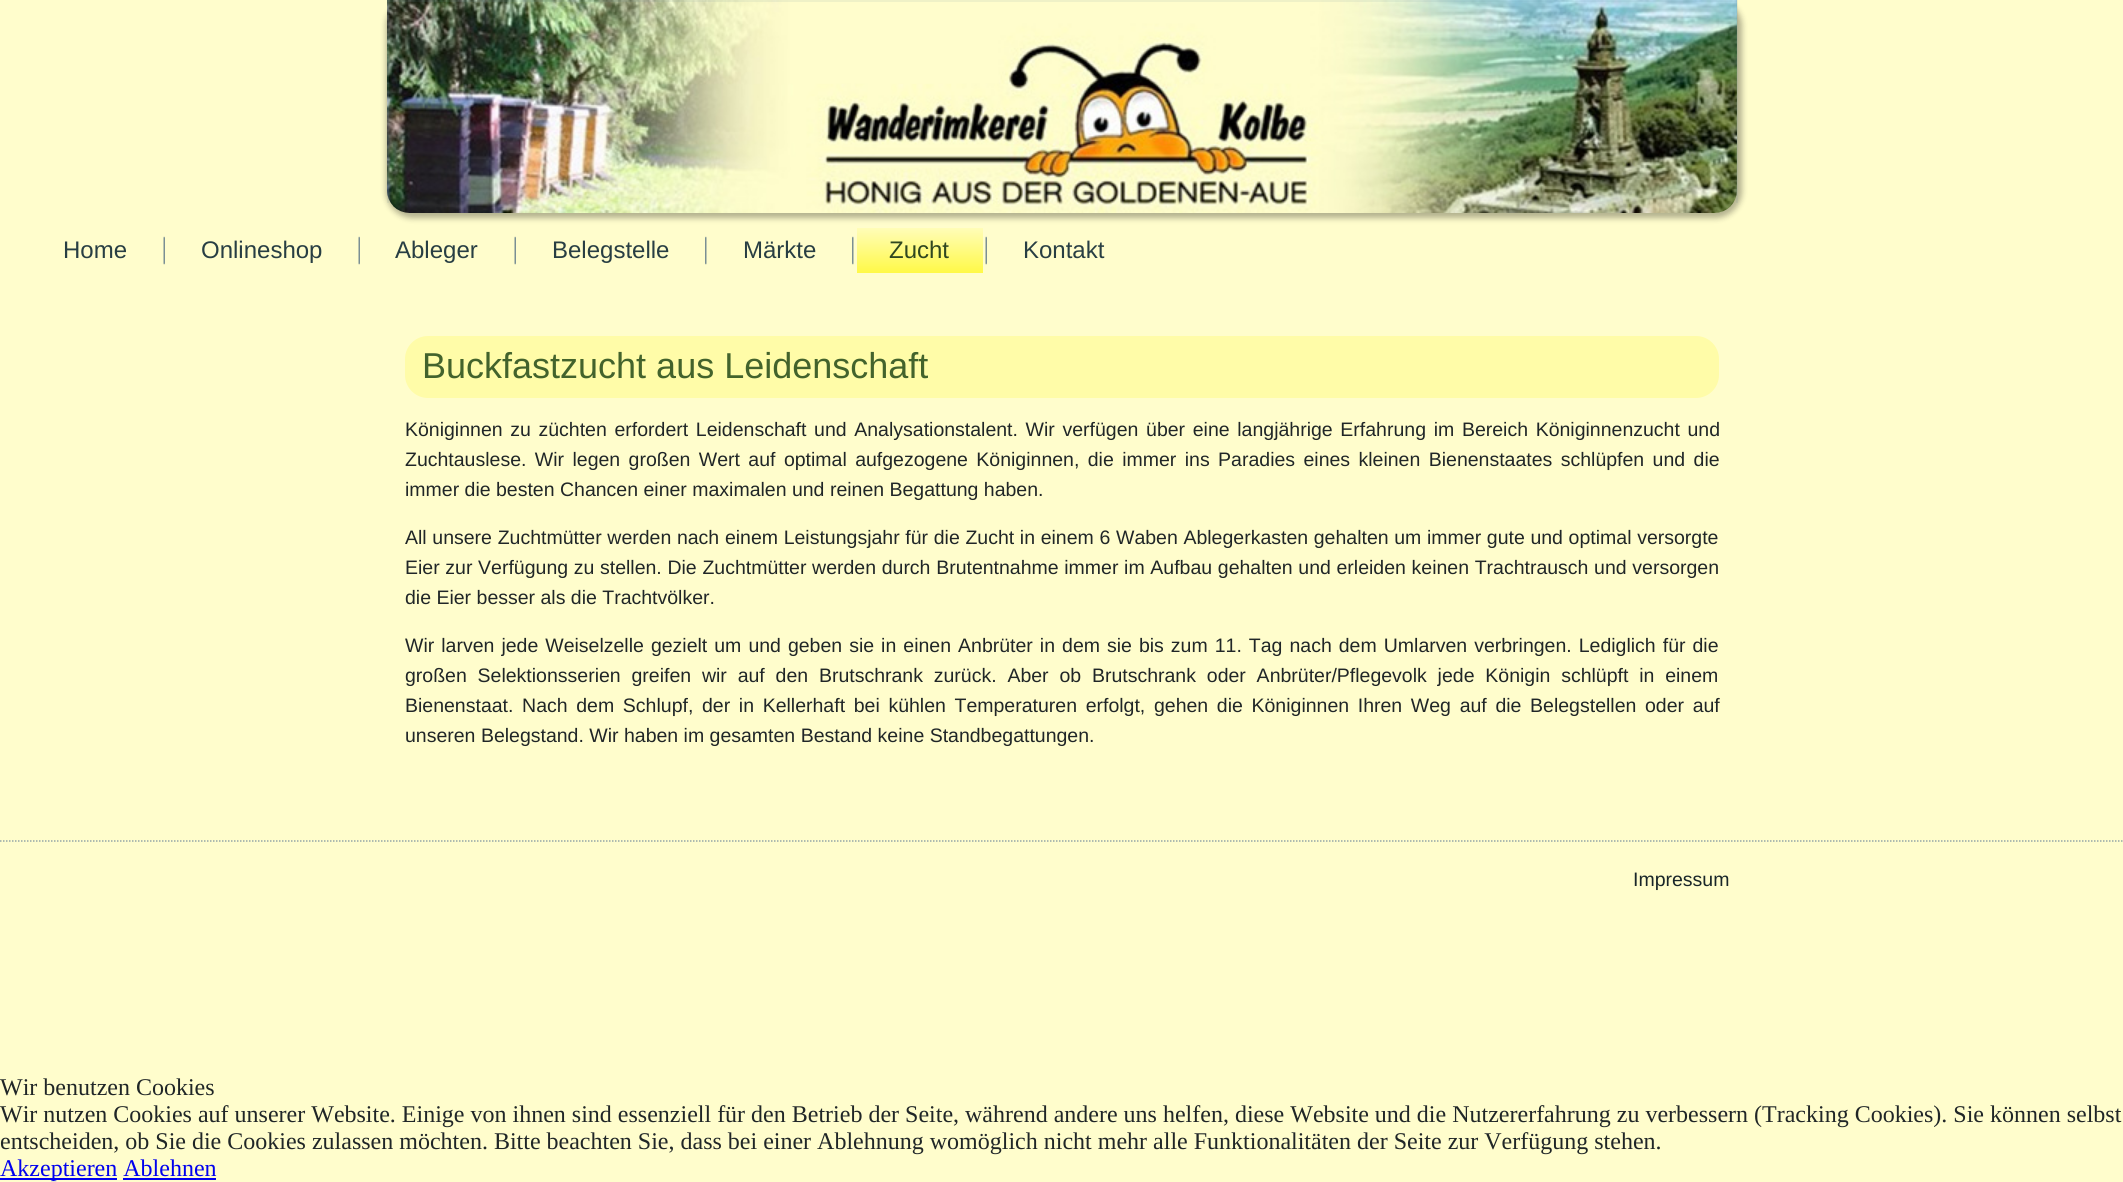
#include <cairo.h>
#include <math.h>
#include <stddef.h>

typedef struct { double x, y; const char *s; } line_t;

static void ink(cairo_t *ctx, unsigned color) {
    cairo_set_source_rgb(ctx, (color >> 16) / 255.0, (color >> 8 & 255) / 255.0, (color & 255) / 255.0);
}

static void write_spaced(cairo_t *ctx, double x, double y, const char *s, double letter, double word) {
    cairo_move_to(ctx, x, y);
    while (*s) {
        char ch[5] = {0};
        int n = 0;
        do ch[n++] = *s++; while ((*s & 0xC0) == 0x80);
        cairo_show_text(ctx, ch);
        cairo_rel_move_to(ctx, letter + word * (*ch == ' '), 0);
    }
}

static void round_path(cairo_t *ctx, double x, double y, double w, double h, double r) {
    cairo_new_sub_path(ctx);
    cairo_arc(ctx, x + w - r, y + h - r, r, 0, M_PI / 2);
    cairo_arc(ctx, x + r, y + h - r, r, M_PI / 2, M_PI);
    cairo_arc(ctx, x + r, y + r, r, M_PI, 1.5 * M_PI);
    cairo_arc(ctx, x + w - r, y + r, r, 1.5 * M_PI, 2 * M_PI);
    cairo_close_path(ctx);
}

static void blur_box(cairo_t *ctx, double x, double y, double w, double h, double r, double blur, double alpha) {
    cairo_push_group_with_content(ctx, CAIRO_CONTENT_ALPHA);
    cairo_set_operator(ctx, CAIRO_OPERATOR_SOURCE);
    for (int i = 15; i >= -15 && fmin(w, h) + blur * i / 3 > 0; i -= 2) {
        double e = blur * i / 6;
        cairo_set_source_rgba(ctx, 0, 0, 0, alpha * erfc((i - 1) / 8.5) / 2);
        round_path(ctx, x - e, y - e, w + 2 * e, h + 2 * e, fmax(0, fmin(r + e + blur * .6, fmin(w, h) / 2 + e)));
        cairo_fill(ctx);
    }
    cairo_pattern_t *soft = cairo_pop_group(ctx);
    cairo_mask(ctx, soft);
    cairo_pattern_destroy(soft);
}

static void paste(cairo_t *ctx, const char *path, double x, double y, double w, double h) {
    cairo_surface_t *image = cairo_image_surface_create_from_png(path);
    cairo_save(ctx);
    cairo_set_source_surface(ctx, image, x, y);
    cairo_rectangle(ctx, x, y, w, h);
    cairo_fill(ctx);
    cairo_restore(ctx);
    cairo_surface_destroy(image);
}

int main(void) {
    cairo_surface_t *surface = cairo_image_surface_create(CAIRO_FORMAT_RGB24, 2123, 1182);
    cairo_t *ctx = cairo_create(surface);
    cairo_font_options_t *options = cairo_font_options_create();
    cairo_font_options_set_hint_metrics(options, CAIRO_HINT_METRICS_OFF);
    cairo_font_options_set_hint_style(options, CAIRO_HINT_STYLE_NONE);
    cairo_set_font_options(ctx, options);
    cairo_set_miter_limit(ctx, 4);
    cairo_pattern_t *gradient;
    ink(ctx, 0xFFFDCC);
    cairo_paint(ctx);
    ink(ctx, 0x000000);
    blur_box(ctx, 386, -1, 1356, 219, 26, 3, 0.3);
    paste(ctx, "media/1.png", 387, 0, 1350, 213);
    cairo_set_source_rgba(ctx, 0.353, 0.545, 0.588, 0.1);
    cairo_rectangle(ctx, 387, 0, 1350, 2);
    cairo_fill(ctx);
    cairo_rectangle(ctx, 1736, 0, 2, 203);
    cairo_fill(ctx);
    cairo_rectangle(ctx, 387, 0, 2, 203);
    cairo_fill(ctx);
    cairo_select_font_face(ctx, "Liberation Sans", CAIRO_FONT_SLANT_NORMAL, CAIRO_FONT_WEIGHT_NORMAL);
    cairo_set_font_size(ctx, 24);
    ink(ctx, 0x283E43);
    cairo_move_to(ctx, 63, 258);
    cairo_show_text(ctx, "Home");
    paste(ctx, "media/2.png", 163, 236, 2, 29);
    cairo_move_to(ctx, 201, 258);
    cairo_show_text(ctx, "Onlineshop");
    paste(ctx, "media/2.png", 358, 236, 2, 29);
    cairo_move_to(ctx, 395, 258);
    cairo_show_text(ctx, "Ableger");
    paste(ctx, "media/2.png", 514, 236, 2, 29);
    cairo_move_to(ctx, 552, 258);
    cairo_show_text(ctx, "Belegstelle");
    paste(ctx, "media/3.png", 705, 236, 2, 29);
    cairo_move_to(ctx, 743, 258);
    cairo_show_text(ctx, "Märkte");
    paste(ctx, "media/3.png", 852, 236, 2, 29);
    gradient = cairo_pattern_create_linear(920, 228, 920, 273);
    cairo_pattern_add_color_stop_rgba(gradient, 0, 1, 0.992, 0.722, 1);
    cairo_pattern_add_color_stop_rgba(gradient, 1, 1, 0.976, 0.278, 1);
    cairo_set_source(ctx, gradient);
    cairo_pattern_destroy(gradient);
    cairo_rectangle(ctx, 857, 228, 126, 45);
    cairo_fill(ctx);
    ink(ctx, 0x30471F);
    cairo_move_to(ctx, 889, 258);
    cairo_show_text(ctx, "Zucht");
    paste(ctx, "media/2.png", 985, 236, 2, 29);
    ink(ctx, 0x283E43);
    cairo_move_to(ctx, 1023, 258);
    cairo_show_text(ctx, "Kontakt");
    ink(ctx, 0xFFFCA8);
    round_path(ctx, 405, 336, 1314, 62, 23);
    cairo_fill(ctx);
    cairo_set_font_size(ctx, 36);
    ink(ctx, 0x43632C);
    cairo_move_to(ctx, 422, 378);
    cairo_show_text(ctx, "Buckfastzucht aus Leidenschaft");
    cairo_set_font_size(ctx, 19.5);
    ink(ctx, 0x202627);
    write_spaced(ctx, 405, 436, "Königinnen zu züchten erfordert Leidenschaft und Analysationstalent. Wir verfügen über eine langjährige Erfahrung im Bereich Königinnenzucht und", 0, 2.25);
    write_spaced(ctx, 405, 466, "Zuchtauslese. Wir legen großen Wert auf optimal aufgezogene Königinnen, die immer ins Paradies eines kleinen Bienenstaates schlüpfen und die", 0, 3);
    cairo_move_to(ctx, 405, 496);
    cairo_show_text(ctx, "immer die besten Chancen einer maximalen und reinen Begattung haben.");
    write_spaced(ctx, 405, 544, "All unsere Zuchtmütter werden nach einem Leistungsjahr für die Zucht in einem 6 Waben Ablegerkasten gehalten um immer gute und optimal versorgte", 0, 0.25);
    write_spaced(ctx, 405, 574, "Eier zur Verfügung zu stellen. Die Zuchtmütter werden durch Brutentnahme immer im Aufbau gehalten und erleiden keinen Trachtrausch und versorgen", 0, 0.25);
    cairo_move_to(ctx, 405, 604);
    cairo_show_text(ctx, "die Eier besser als die Trachtvölker.");
    write_spaced(ctx, 405, 652, "Wir larven jede Weiselzelle gezielt um und geben sie in einen Anbrüter in dem sie bis zum 11. Tag nach dem Umlarven verbringen. Lediglich für die", 0, 1.6);
    write_spaced(ctx, 405, 682, "großen Selektionsserien greifen wir auf den Brutschrank zurück. Aber ob Brutschrank oder Anbrüter/Pflegevolk jede Königin schlüpft in einem", 0, 5.4);
    write_spaced(ctx, 405, 712, "Bienenstaat. Nach dem Schlupf, der in Kellerhaft bei kühlen Temperaturen erfolgt, gehen die Königinnen Ihren Weg auf die Belegstellen oder auf", 0, 3.25);
    cairo_move_to(ctx, 405, 742);
    cairo_show_text(ctx, "unseren Belegstand. Wir haben im gesamten Bestand keine Standbegattungen.");
    cairo_new_path(ctx);
    cairo_move_to(ctx, 0, 841);
    cairo_line_to(ctx, 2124, 841);
    ink(ctx, 0x94A5A8);
    cairo_set_line_width(ctx, 1.5);
    cairo_set_dash(ctx, (double[]){1.5, 1.5}, 2, 0);
    cairo_stroke(ctx);
    ink(ctx, 0x192629);
    cairo_move_to(ctx, 1633, 886);
    cairo_show_text(ctx, "Impressum");
    cairo_select_font_face(ctx, "Liberation Serif", CAIRO_FONT_SLANT_NORMAL, CAIRO_FONT_WEIGHT_NORMAL);
    cairo_set_font_size(ctx, 24);
    ink(ctx, 0x202627);
    {
        static const line_t items[] = {
            {0, 1095, "Wir benutzen Cookies"},
            {0, 1122, "Wir nutzen Cookies auf unserer Website. Einige von ihnen sind essenziell für den Betrieb der Seite, während andere uns helfen, diese Website und die Nutzererfahrung zu verbessern (Tracking Cookies). Sie können selbst"},
            {0, 1149, "entscheiden, ob Sie die Cookies zulassen möchten. Bitte beachten Sie, dass bei einer Ablehnung womöglich nicht mehr alle Funktionalitäten der Seite zur Verfügung stehen."},
        };
        for (size_t i = 0; i < sizeof items / sizeof *items; i++) {
            cairo_move_to(ctx, items[i].x, items[i].y);
            cairo_show_text(ctx, items[i].s);
        }
    }
    ink(ctx, 0x0000EE);
    cairo_rectangle(ctx, 0, 1178, 117, 2);
    cairo_fill(ctx);
    cairo_move_to(ctx, 0, 1176);
    cairo_show_text(ctx, "Akzeptieren Ablehnen");
    cairo_rectangle(ctx, 123, 1178, 93, 2);
    cairo_fill(ctx);
    cairo_surface_write_to_png(surface, "image.png");
    cairo_font_options_destroy(options);
    cairo_destroy(ctx);
    cairo_surface_destroy(surface);
    return 0;
}
